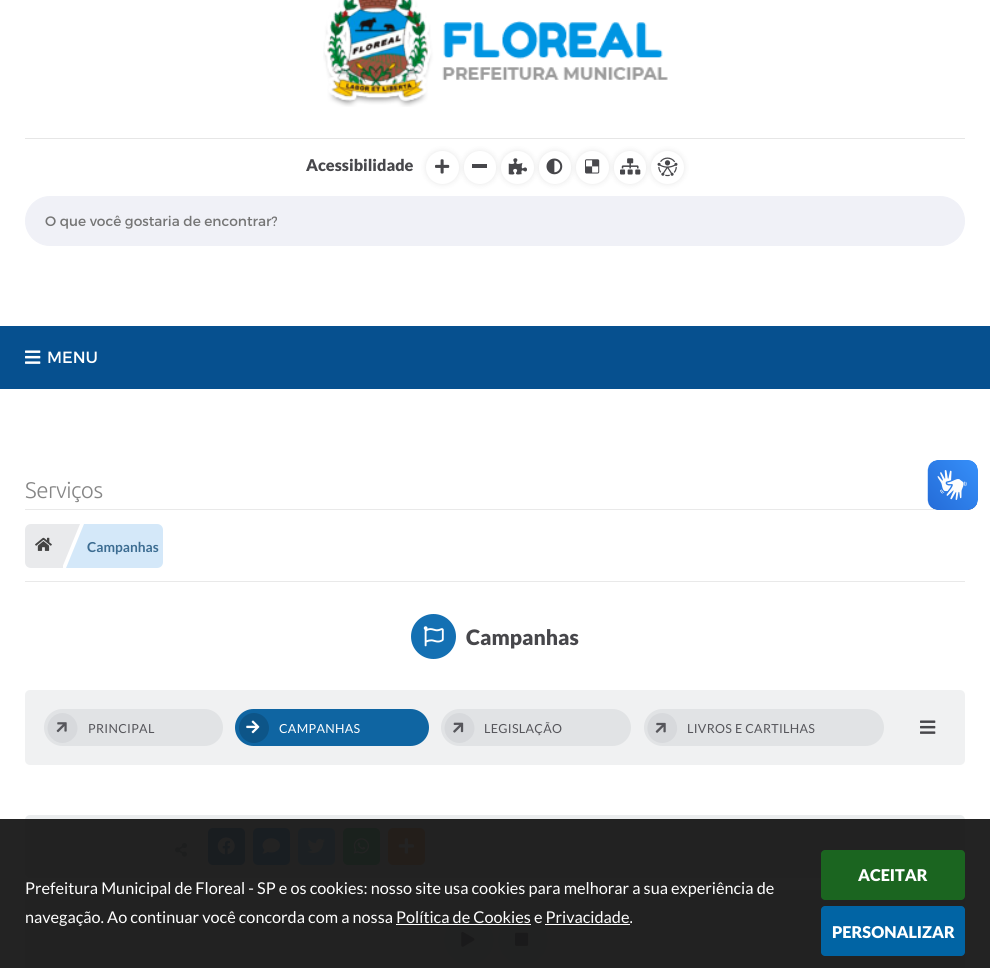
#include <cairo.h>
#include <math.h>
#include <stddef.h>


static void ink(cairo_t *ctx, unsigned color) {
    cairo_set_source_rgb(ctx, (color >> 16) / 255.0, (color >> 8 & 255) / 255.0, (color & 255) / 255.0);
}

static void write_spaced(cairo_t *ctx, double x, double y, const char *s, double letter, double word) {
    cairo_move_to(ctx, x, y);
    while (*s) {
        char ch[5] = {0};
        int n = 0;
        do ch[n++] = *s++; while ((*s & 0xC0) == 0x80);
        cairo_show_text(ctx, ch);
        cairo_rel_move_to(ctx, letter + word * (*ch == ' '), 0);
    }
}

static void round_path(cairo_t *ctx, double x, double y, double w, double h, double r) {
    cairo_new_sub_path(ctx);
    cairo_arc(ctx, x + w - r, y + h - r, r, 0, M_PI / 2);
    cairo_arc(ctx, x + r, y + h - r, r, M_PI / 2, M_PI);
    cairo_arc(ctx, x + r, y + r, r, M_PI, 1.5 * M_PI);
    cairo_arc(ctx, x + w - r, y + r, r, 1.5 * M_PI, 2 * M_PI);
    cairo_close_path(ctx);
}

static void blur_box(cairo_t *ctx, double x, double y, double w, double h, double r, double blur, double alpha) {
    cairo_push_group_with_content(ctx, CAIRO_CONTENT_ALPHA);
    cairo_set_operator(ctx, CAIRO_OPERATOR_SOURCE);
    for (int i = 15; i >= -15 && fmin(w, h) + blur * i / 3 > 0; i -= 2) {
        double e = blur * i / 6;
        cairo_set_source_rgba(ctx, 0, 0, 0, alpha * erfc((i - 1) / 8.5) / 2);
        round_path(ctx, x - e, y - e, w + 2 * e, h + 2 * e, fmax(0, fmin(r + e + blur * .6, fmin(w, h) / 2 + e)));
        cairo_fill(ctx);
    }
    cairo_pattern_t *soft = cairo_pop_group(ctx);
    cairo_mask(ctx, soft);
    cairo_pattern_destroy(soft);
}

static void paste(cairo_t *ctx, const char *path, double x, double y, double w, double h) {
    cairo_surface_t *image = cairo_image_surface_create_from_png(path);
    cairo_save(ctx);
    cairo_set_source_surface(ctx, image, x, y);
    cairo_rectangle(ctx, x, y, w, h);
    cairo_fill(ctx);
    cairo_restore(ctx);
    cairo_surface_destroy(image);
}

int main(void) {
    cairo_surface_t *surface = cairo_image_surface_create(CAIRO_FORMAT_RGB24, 990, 968);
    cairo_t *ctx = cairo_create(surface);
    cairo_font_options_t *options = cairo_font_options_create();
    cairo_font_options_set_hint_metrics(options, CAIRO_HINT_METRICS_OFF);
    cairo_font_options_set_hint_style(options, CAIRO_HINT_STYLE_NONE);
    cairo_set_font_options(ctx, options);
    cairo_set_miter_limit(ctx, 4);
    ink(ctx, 0xFFFFFF);
    cairo_paint(ctx);
    paste(ctx, "media/1.png", 323, 0, 345, 107);
    ink(ctx, 0xE6E6E6);
    cairo_rectangle(ctx, 25, 138, 940, 1);
    cairo_fill(ctx);
    cairo_select_font_face(ctx, "Lato Black", CAIRO_FONT_SLANT_NORMAL, CAIRO_FONT_WEIGHT_NORMAL);
    cairo_set_font_size(ctx, 16.25);
    ink(ctx, 0x47474B);
    cairo_move_to(ctx, 306, 171);
    cairo_show_text(ctx, "Acessibilidade");
    ink(ctx, 0x000000);
    blur_box(ctx, 426, 151, 33, 33, 16.5, 3, 0.1);
    ink(ctx, 0xFFFFFF);
    cairo_arc(ctx, 442.5, 167.5, 16.5, 0, 2 * M_PI);
    cairo_fill(ctx);
    paste(ctx, "media/2.png", 435, 159, 15, 15);
    ink(ctx, 0x000000);
    blur_box(ctx, 464, 151, 32, 33, 16, 3, 0.1);
    ink(ctx, 0xFFFFFF);
    round_path(ctx, 464, 151, 32, 33, 16);
    cairo_fill(ctx);
    ink(ctx, 0x47474B);
    cairo_rectangle(ctx, 472, 164, 15, 4);
    cairo_fill(ctx);
    ink(ctx, 0x000000);
    blur_box(ctx, 501, 151, 33, 33, 16.5, 3, 0.1);
    ink(ctx, 0xFFFFFF);
    cairo_arc(ctx, 517.5, 167.5, 16.5, 0, 2 * M_PI);
    cairo_fill(ctx);
    paste(ctx, "media/3.png", 508, 158, 19, 17);
    ink(ctx, 0x000000);
    blur_box(ctx, 539, 151, 32, 33, 16, 3, 0.1);
    ink(ctx, 0xFFFFFF);
    round_path(ctx, 539, 151, 32, 33, 16);
    cairo_fill(ctx);
    paste(ctx, "media/4.png", 546, 158, 17, 17);
    ink(ctx, 0x000000);
    blur_box(ctx, 576, 151, 33, 33, 16.5, 3, 0.1);
    ink(ctx, 0xFFFFFF);
    cairo_arc(ctx, 592.5, 167.5, 16.5, 0, 2 * M_PI);
    cairo_fill(ctx);
    paste(ctx, "media/5.png", 585, 159, 15, 15);
    ink(ctx, 0x000000);
    blur_box(ctx, 614, 151, 32, 33, 16, 3, 0.1);
    ink(ctx, 0xFFFFFF);
    round_path(ctx, 614, 151, 32, 33, 16);
    cairo_fill(ctx);
    paste(ctx, "media/6.png", 620, 158, 21, 17);
    ink(ctx, 0x000000);
    blur_box(ctx, 651, 151, 33, 33, 16.5, 3, 0.1);
    ink(ctx, 0xFFFFFF);
    cairo_arc(ctx, 667.5, 167.5, 16.5, 0, 2 * M_PI);
    cairo_fill(ctx);
    paste(ctx, "media/7.png", 657, 157, 21, 20);
    ink(ctx, 0xF0F1F7);
    round_path(ctx, 25.5, 196.5, 939, 49, 24.5);
    cairo_fill_preserve(ctx);
    cairo_set_line_width(ctx, 1);
    cairo_stroke(ctx);
    cairo_select_font_face(ctx, "Montserrat", CAIRO_FONT_SLANT_NORMAL, CAIRO_FONT_WEIGHT_NORMAL);
    cairo_set_font_size(ctx, 13.75);
    ink(ctx, 0x757575);
    cairo_move_to(ctx, 45, 226);
    cairo_show_text(ctx, "O que você gostaria de encontrar?");
    ink(ctx, 0x06508F);
    cairo_rectangle(ctx, 0, 326, 990, 63);
    cairo_fill(ctx);
    paste(ctx, "media/8.png", 25, 350, 16, 14);
    cairo_set_font_size(ctx, 16.25);
    ink(ctx, 0xFFFFFF);
    cairo_move_to(ctx, 47, 363);
    cairo_show_text(ctx, "MENU");
    cairo_select_font_face(ctx, "Ubuntu Light", CAIRO_FONT_SLANT_NORMAL, CAIRO_FONT_WEIGHT_NORMAL);
    cairo_set_font_size(ctx, 22.5);
    ink(ctx, 0x868686);
    write_spaced(ctx, 25, 498, "Serviços", -0.5, 0);
    ink(ctx, 0xE9E9E9);
    cairo_rectangle(ctx, 25, 509, 913, 1);
    cairo_fill(ctx);
    cairo_rectangle(ctx, 25, 581, 940, 1);
    cairo_fill(ctx);
    ink(ctx, 0xE9EAEC);
    cairo_new_path(ctx);
    cairo_move_to(ctx, 31, 524);
    cairo_line_to(ctx, 63, 524);
    cairo_line_to(ctx, 63, 568);
    cairo_line_to(ctx, 31, 568);
    cairo_curve_to(ctx, 27.5, 568, 25, 565.5, 25, 562);
    cairo_line_to(ctx, 25, 530);
    cairo_curve_to(ctx, 25, 526.5, 27.5, 524, 31, 524);
    cairo_close_path(ctx);
    cairo_fill(ctx);
    paste(ctx, "media/9.png", 35, 537, 17, 14);
    cairo_new_path(ctx);
    cairo_move_to(ctx, 62, 524);
    cairo_line_to(ctx, 80, 524);
    cairo_line_to(ctx, 62, 568);
    cairo_close_path(ctx);
    cairo_fill(ctx);
    ink(ctx, 0xD4E8F9);
    cairo_new_path(ctx);
    cairo_move_to(ctx, 84, 524);
    cairo_line_to(ctx, 157, 524);
    cairo_curve_to(ctx, 160.5, 524, 163, 526.5, 163, 530);
    cairo_line_to(ctx, 163, 562);
    cairo_curve_to(ctx, 163, 565.5, 160.5, 568, 157, 568);
    cairo_line_to(ctx, 84, 568);
    cairo_close_path(ctx);
    cairo_fill(ctx);
    cairo_new_path(ctx);
    cairo_move_to(ctx, 84, 568);
    cairo_line_to(ctx, 66, 568);
    cairo_line_to(ctx, 84, 524);
    cairo_close_path(ctx);
    cairo_fill(ctx);
    cairo_select_font_face(ctx, "Lato", CAIRO_FONT_SLANT_NORMAL, CAIRO_FONT_WEIGHT_BOLD);
    cairo_set_font_size(ctx, 13.75);
    ink(ctx, 0x3D6D92);
    cairo_move_to(ctx, 87, 552);
    cairo_show_text(ctx, "Campanhas");
    ink(ctx, 0x1470B3);
    cairo_new_path(ctx);
    cairo_arc(ctx, 433.5, 636.5, 22.5, 0, 2 * M_PI);
    cairo_fill(ctx);
    paste(ctx, "media/10.png", 423, 626, 21, 21);
    cairo_select_font_face(ctx, "Lato Black", CAIRO_FONT_SLANT_NORMAL, CAIRO_FONT_WEIGHT_NORMAL);
    cairo_set_font_size(ctx, 21.25);
    ink(ctx, 0x47474B);
    cairo_move_to(ctx, 466, 645);
    cairo_show_text(ctx, "Campanhas");
    ink(ctx, 0xF0F1F2);
    round_path(ctx, 25, 690, 940, 75, 5);
    cairo_fill(ctx);
    ink(ctx, 0xE1E3E5);
    round_path(ctx, 44, 709, 179, 37, 18.5);
    cairo_fill(ctx);
    ink(ctx, 0xD7D9DC);
    cairo_new_path(ctx);
    cairo_move_to(ctx, 52, 717.5);
    cairo_curve_to(ctx, 58, 711.5, 67, 711.5, 73, 717.5);
    cairo_curve_to(ctx, 79, 723.5, 79, 733, 73, 738.5);
    cairo_curve_to(ctx, 67, 744.5, 58, 744.5, 52, 738.5);
    cairo_curve_to(ctx, 46, 733, 46, 723.5, 52, 717.5);
    cairo_close_path(ctx);
    cairo_fill(ctx);
    paste(ctx, "media/11.png", 56, 722, 11, 11);
    cairo_select_font_face(ctx, "Lato", CAIRO_FONT_SLANT_NORMAL, CAIRO_FONT_WEIGHT_NORMAL);
    cairo_set_font_size(ctx, 12.5);
    ink(ctx, 0x56565B);
    write_spaced(ctx, 88, 733, "PRINCIPAL", 0.3, 0);
    ink(ctx, 0x0F65A2);
    round_path(ctx, 235, 709, 194, 37, 18.5);
    cairo_fill(ctx);
    ink(ctx, 0x0D5588);
    cairo_arc(ctx, 254, 728, 15, 0, 2 * M_PI);
    cairo_fill(ctx);
    paste(ctx, "media/12.png", 246, 720, 14, 14);
    ink(ctx, 0xFFFFFF);
    write_spaced(ctx, 279, 733, "CAMPANHAS", 0.3, 0);
    ink(ctx, 0xE1E3E5);
    round_path(ctx, 441, 709, 190, 37, 18.5);
    cairo_fill(ctx);
    ink(ctx, 0xD7D9DC);
    cairo_new_path(ctx);
    cairo_move_to(ctx, 449, 717.5);
    cairo_curve_to(ctx, 454.5, 711.5, 464, 711.5, 470, 717.5);
    cairo_curve_to(ctx, 476, 723.5, 476, 733, 470, 738.5);
    cairo_curve_to(ctx, 464, 744.5, 454.5, 744.5, 449, 738.5);
    cairo_curve_to(ctx, 443, 733, 443, 723.5, 449, 717.5);
    cairo_close_path(ctx);
    cairo_fill(ctx);
    paste(ctx, "media/13.png", 453, 722, 11, 11);
    ink(ctx, 0x56565B);
    write_spaced(ctx, 484, 733, "LEGISLAÇÃO", 0.3, 0);
    ink(ctx, 0xE1E3E5);
    round_path(ctx, 644, 709, 240, 37, 18.5);
    cairo_fill(ctx);
    ink(ctx, 0xD7D9DC);
    cairo_new_path(ctx);
    cairo_move_to(ctx, 651.5, 717.5);
    cairo_curve_to(ctx, 657.5, 711.5, 667, 711.5, 673, 717.5);
    cairo_curve_to(ctx, 678.5, 723.5, 678.5, 733, 673, 738.5);
    cairo_curve_to(ctx, 667, 744.5, 657.5, 744.5, 651.5, 738.5);
    cairo_curve_to(ctx, 646, 733, 646, 723.5, 651.5, 717.5);
    cairo_close_path(ctx);
    cairo_fill(ctx);
    paste(ctx, "media/14.png", 655, 722, 11, 11);
    ink(ctx, 0x56565B);
    write_spaced(ctx, 687, 733, "LIVROS E CARTILHAS", 0.3, 0);
    paste(ctx, "media/15.png", 920, 720, 16, 14);
    ink(ctx, 0xEBEDEE);
    round_path(ctx, 25, 815, 940, 63, 5);
    cairo_fill(ctx);
    paste(ctx, "media/16.png", 175, 843, 12, 14);
    ink(ctx, 0x2675C5);
    round_path(ctx, 208, 828, 37, 37, 5);
    cairo_fill(ctx);
    paste(ctx, "media/17.png", 217, 837, 18, 18);
    ink(ctx, 0x3290F0);
    round_path(ctx, 253, 828, 37, 37, 5);
    cairo_fill(ctx);
    paste(ctx, "media/18.png", 262, 838, 18, 16);
    ink(ctx, 0x60C9FF);
    round_path(ctx, 298, 828, 37, 37, 5);
    cairo_fill(ctx);
    paste(ctx, "media/19.png", 307, 838, 18, 15);
    ink(ctx, 0x40D277);
    round_path(ctx, 343, 828, 37, 37, 5);
    cairo_fill(ctx);
    paste(ctx, "media/20.png", 353, 838, 17, 16);
    ink(ctx, 0xFF943E);
    round_path(ctx, 388, 828, 37, 37, 5);
    cairo_fill(ctx);
    paste(ctx, "media/21.png", 398, 838, 17, 16);
    ink(ctx, 0xF0F2F4);
    round_path(ctx, 25, 890, 940, 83, 5);
    cairo_fill(ctx);
    ink(ctx, 0xEAECEE);
    round_path(ctx, 38, 903, 915, 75, 37.5);
    cairo_fill(ctx);
    ink(ctx, 0xDEE0E2);
    cairo_arc(ctx, 469, 940, 25, 0, 2 * M_PI);
    cairo_fill(ctx);
    paste(ctx, "media/22.png", 461, 931, 14, 16);
    cairo_arc(ctx, 523, 940, 25, 0, 2 * M_PI);
    cairo_fill(ctx);
    paste(ctx, "media/23.png", 515, 932, 14, 14);
    paste(ctx, "media/24.png", 927, 460, 51, 50);
    paste(ctx, "media/25.png", 928, 460, 50, 50);
    cairo_set_source_rgba(ctx, 0.098, 0.098, 0.098, 0.95);
    cairo_rectangle(ctx, 0, 819, 990, 149);
    cairo_fill(ctx);
    cairo_set_font_size(ctx, 16.25);
    ink(ctx, 0xFFFFFF);
    cairo_move_to(ctx, 25, 894);
    cairo_show_text(ctx, "Prefeitura Municipal de Floreal - SP e os cookies: nosso site usa cookies para melhorar a sua experiência de");
    cairo_move_to(ctx, 25, 923);
    cairo_show_text(ctx, "navegação. Ao continuar você concorda com a nossa Política de Cookies e Privacidade.");
    cairo_rectangle(ctx, 396, 924, 135, 1);
    cairo_fill(ctx);
    cairo_rectangle(ctx, 545, 924, 85, 1);
    cairo_fill(ctx);
    ink(ctx, 0x1B6520);
    round_path(ctx, 821, 850, 144, 50, 4);
    cairo_fill(ctx);
    cairo_select_font_face(ctx, "Lato Black", CAIRO_FONT_SLANT_NORMAL, CAIRO_FONT_WEIGHT_NORMAL);
    ink(ctx, 0xFFFFFF);
    cairo_move_to(ctx, 858, 881);
    cairo_show_text(ctx, "ACEITAR");
    ink(ctx, 0x0164A4);
    round_path(ctx, 821, 906, 144, 50, 4);
    cairo_fill(ctx);
    ink(ctx, 0xFFFFFF);
    cairo_move_to(ctx, 832, 938);
    cairo_show_text(ctx, "PERSONALIZAR");
    cairo_surface_write_to_png(surface, "image.png");
    cairo_font_options_destroy(options);
    cairo_destroy(ctx);
    cairo_surface_destroy(surface);
    return 0;
}
